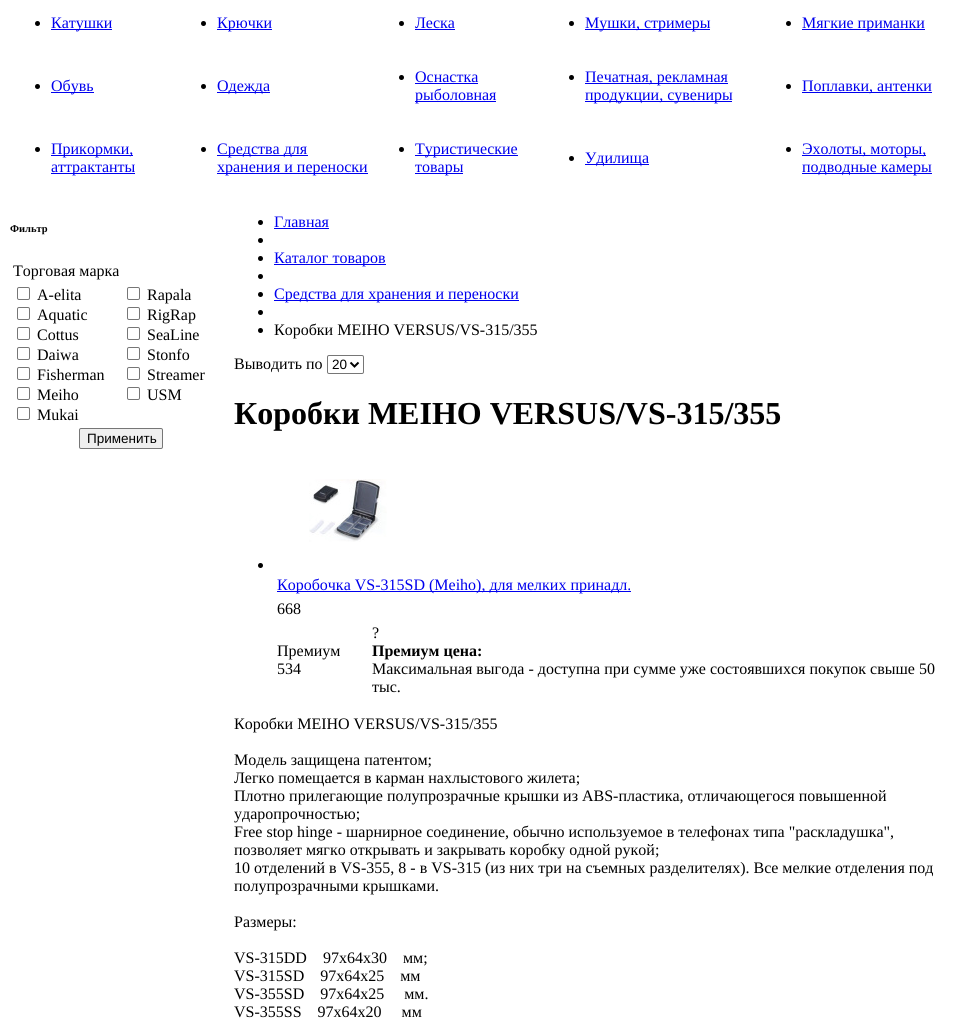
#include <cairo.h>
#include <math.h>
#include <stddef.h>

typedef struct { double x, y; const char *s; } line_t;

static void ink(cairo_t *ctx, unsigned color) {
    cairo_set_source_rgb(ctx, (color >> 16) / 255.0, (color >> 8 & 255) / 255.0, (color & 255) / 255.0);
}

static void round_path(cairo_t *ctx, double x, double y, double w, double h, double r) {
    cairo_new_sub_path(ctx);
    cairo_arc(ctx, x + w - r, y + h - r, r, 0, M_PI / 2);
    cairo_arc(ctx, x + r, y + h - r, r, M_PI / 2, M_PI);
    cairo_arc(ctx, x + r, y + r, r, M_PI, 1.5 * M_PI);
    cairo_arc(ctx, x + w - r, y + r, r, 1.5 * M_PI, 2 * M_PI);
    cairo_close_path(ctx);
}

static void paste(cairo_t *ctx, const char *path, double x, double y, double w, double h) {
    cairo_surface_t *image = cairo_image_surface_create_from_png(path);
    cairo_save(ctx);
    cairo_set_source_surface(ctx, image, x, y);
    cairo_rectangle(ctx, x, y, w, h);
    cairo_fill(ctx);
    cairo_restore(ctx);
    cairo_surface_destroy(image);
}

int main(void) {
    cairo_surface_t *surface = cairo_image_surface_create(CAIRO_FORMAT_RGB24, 971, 1028);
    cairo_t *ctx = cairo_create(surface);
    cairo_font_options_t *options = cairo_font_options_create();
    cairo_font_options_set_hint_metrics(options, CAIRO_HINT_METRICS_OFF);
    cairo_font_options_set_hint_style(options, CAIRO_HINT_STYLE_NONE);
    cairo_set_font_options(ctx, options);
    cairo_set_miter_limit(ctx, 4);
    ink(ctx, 0xFFFFFF);
    cairo_paint(ctx);
    ink(ctx, 0x000000);
    cairo_arc(ctx, 37.5, 23.5, 2.5, 0, 2 * M_PI);
    cairo_fill(ctx);
    ink(ctx, 0x0000EE);
    cairo_rectangle(ctx, 51, 29, 61, 1);
    cairo_fill(ctx);
    cairo_select_font_face(ctx, "Liberation Serif", CAIRO_FONT_SLANT_NORMAL, CAIRO_FONT_WEIGHT_NORMAL);
    cairo_set_font_size(ctx, 16);
    cairo_move_to(ctx, 51, 28);
    cairo_show_text(ctx, "Катушки");
    ink(ctx, 0x000000);
    cairo_new_path(ctx);
    cairo_arc(ctx, 203.5, 23.5, 2.5, 0, 2 * M_PI);
    cairo_fill(ctx);
    ink(ctx, 0x0000EE);
    cairo_rectangle(ctx, 217, 29, 55, 1);
    cairo_fill(ctx);
    cairo_move_to(ctx, 217, 28);
    cairo_show_text(ctx, "Крючки");
    ink(ctx, 0x000000);
    cairo_new_path(ctx);
    cairo_arc(ctx, 401.5, 23.5, 2.5, 0, 2 * M_PI);
    cairo_fill(ctx);
    ink(ctx, 0x0000EE);
    cairo_move_to(ctx, 415, 28);
    cairo_show_text(ctx, "Леска");
    cairo_rectangle(ctx, 415, 29, 40, 1);
    cairo_fill(ctx);
    ink(ctx, 0x000000);
    cairo_arc(ctx, 571.5, 23.5, 2.5, 0, 2 * M_PI);
    cairo_fill(ctx);
    ink(ctx, 0x0000EE);
    cairo_rectangle(ctx, 585, 29, 125, 1);
    cairo_fill(ctx);
    cairo_move_to(ctx, 585, 28);
    cairo_show_text(ctx, "Мушки, стримеры");
    ink(ctx, 0x000000);
    cairo_new_path(ctx);
    cairo_arc(ctx, 788.5, 23.5, 2.5, 0, 2 * M_PI);
    cairo_fill(ctx);
    ink(ctx, 0x0000EE);
    cairo_rectangle(ctx, 802, 29, 123, 1);
    cairo_fill(ctx);
    cairo_move_to(ctx, 802, 28);
    cairo_show_text(ctx, "Мягкие приманки");
    ink(ctx, 0x000000);
    cairo_new_path(ctx);
    cairo_arc(ctx, 37.5, 86.5, 2.5, 0, 2 * M_PI);
    cairo_fill(ctx);
    ink(ctx, 0x0000EE);
    cairo_rectangle(ctx, 51, 92, 43, 1);
    cairo_fill(ctx);
    cairo_move_to(ctx, 51, 91);
    cairo_show_text(ctx, "Обувь");
    ink(ctx, 0x000000);
    cairo_new_path(ctx);
    cairo_arc(ctx, 203.5, 86.5, 2.5, 0, 2 * M_PI);
    cairo_fill(ctx);
    ink(ctx, 0x0000EE);
    cairo_rectangle(ctx, 217, 92, 53, 1);
    cairo_fill(ctx);
    cairo_move_to(ctx, 217, 91);
    cairo_show_text(ctx, "Одежда");
    ink(ctx, 0x000000);
    cairo_new_path(ctx);
    cairo_arc(ctx, 401.5, 77.5, 2.5, 0, 2 * M_PI);
    cairo_fill(ctx);
    ink(ctx, 0x0000EE);
    cairo_move_to(ctx, 415, 82);
    cairo_show_text(ctx, "Оснастка");
    cairo_rectangle(ctx, 415, 83, 63, 1);
    cairo_fill(ctx);
    cairo_rectangle(ctx, 415, 101, 81, 1);
    cairo_fill(ctx);
    cairo_move_to(ctx, 415, 100);
    cairo_show_text(ctx, "рыболовная");
    ink(ctx, 0x000000);
    cairo_new_path(ctx);
    cairo_arc(ctx, 571.5, 77.5, 2.5, 0, 2 * M_PI);
    cairo_fill(ctx);
    ink(ctx, 0x0000EE);
    cairo_rectangle(ctx, 585, 83, 143, 1);
    cairo_fill(ctx);
    cairo_move_to(ctx, 585, 82);
    cairo_show_text(ctx, "Печатная, рекламная");
    cairo_rectangle(ctx, 585, 101, 147, 1);
    cairo_fill(ctx);
    cairo_move_to(ctx, 585, 100);
    cairo_show_text(ctx, "продукции, сувениры");
    ink(ctx, 0x000000);
    cairo_new_path(ctx);
    cairo_arc(ctx, 788.5, 86.5, 2.5, 0, 2 * M_PI);
    cairo_fill(ctx);
    ink(ctx, 0x0000EE);
    cairo_rectangle(ctx, 802, 92, 130, 1);
    cairo_fill(ctx);
    cairo_move_to(ctx, 802, 91);
    cairo_show_text(ctx, "Поплавки, антенки");
    ink(ctx, 0x000000);
    cairo_new_path(ctx);
    cairo_arc(ctx, 37.5, 149.5, 2.5, 0, 2 * M_PI);
    cairo_fill(ctx);
    ink(ctx, 0x0000EE);
    cairo_rectangle(ctx, 51, 155, 82, 1);
    cairo_fill(ctx);
    cairo_move_to(ctx, 51, 154);
    cairo_show_text(ctx, "Прикормки,");
    cairo_rectangle(ctx, 51, 173, 84, 1);
    cairo_fill(ctx);
    cairo_move_to(ctx, 51, 172);
    cairo_show_text(ctx, "аттрактанты");
    ink(ctx, 0x000000);
    cairo_new_path(ctx);
    cairo_arc(ctx, 203.5, 149.5, 2.5, 0, 2 * M_PI);
    cairo_fill(ctx);
    ink(ctx, 0x0000EE);
    cairo_rectangle(ctx, 217, 155, 91, 1);
    cairo_fill(ctx);
    cairo_move_to(ctx, 217, 154);
    cairo_show_text(ctx, "Средства для");
    cairo_rectangle(ctx, 217, 173, 151, 1);
    cairo_fill(ctx);
    cairo_move_to(ctx, 217, 172);
    cairo_show_text(ctx, "хранения и переноски");
    ink(ctx, 0x000000);
    cairo_new_path(ctx);
    cairo_arc(ctx, 401.5, 149.5, 2.5, 0, 2 * M_PI);
    cairo_fill(ctx);
    ink(ctx, 0x0000EE);
    cairo_rectangle(ctx, 415, 155, 103, 1);
    cairo_fill(ctx);
    cairo_move_to(ctx, 415, 154);
    cairo_show_text(ctx, "Туристические");
    cairo_rectangle(ctx, 415, 173, 48, 1);
    cairo_fill(ctx);
    cairo_move_to(ctx, 415, 172);
    cairo_show_text(ctx, "товары");
    ink(ctx, 0x000000);
    cairo_new_path(ctx);
    cairo_arc(ctx, 571.5, 158.5, 2.5, 0, 2 * M_PI);
    cairo_fill(ctx);
    ink(ctx, 0x0000EE);
    cairo_rectangle(ctx, 585, 164, 64, 1);
    cairo_fill(ctx);
    cairo_move_to(ctx, 585, 163);
    cairo_show_text(ctx, "Удилища");
    ink(ctx, 0x000000);
    cairo_new_path(ctx);
    cairo_arc(ctx, 788.5, 149.5, 2.5, 0, 2 * M_PI);
    cairo_fill(ctx);
    ink(ctx, 0x0000EE);
    cairo_rectangle(ctx, 802, 155, 124, 1);
    cairo_fill(ctx);
    cairo_move_to(ctx, 802, 154);
    cairo_show_text(ctx, "Эхолоты, моторы,");
    cairo_rectangle(ctx, 802, 173, 130, 1);
    cairo_fill(ctx);
    cairo_move_to(ctx, 802, 172);
    cairo_show_text(ctx, "подводные камеры");
    cairo_select_font_face(ctx, "Liberation Serif", CAIRO_FONT_SLANT_NORMAL, CAIRO_FONT_WEIGHT_BOLD);
    cairo_set_font_size(ctx, 10.5);
    ink(ctx, 0x000000);
    cairo_move_to(ctx, 10, 232);
    cairo_show_text(ctx, "Фильтр");
    cairo_select_font_face(ctx, "Liberation Serif", CAIRO_FONT_SLANT_NORMAL, CAIRO_FONT_WEIGHT_NORMAL);
    cairo_set_font_size(ctx, 16);
    cairo_move_to(ctx, 13, 276);
    cairo_show_text(ctx, "Торговая марка");
    round_path(ctx, 17.5, 287.5, 12, 12, 1.5);
    ink(ctx, 0x767676);
    cairo_set_line_width(ctx, 1);
    cairo_stroke(ctx);
    ink(ctx, 0x000000);
    cairo_move_to(ctx, 37, 300);
    cairo_show_text(ctx, "A-elita");
    round_path(ctx, 17.5, 307.5, 12, 12, 1.5);
    ink(ctx, 0x767676);
    cairo_stroke(ctx);
    ink(ctx, 0x000000);
    cairo_move_to(ctx, 37, 320);
    cairo_show_text(ctx, "Aquatic");
    round_path(ctx, 17.5, 327.5, 12, 12, 1.5);
    ink(ctx, 0x767676);
    cairo_stroke(ctx);
    ink(ctx, 0x000000);
    cairo_move_to(ctx, 37, 340);
    cairo_show_text(ctx, "Cottus");
    round_path(ctx, 17.5, 347.5, 12, 12, 1.5);
    ink(ctx, 0x767676);
    cairo_stroke(ctx);
    ink(ctx, 0x000000);
    cairo_move_to(ctx, 37, 360);
    cairo_show_text(ctx, "Daiwa");
    round_path(ctx, 17.5, 367.5, 12, 12, 1.5);
    ink(ctx, 0x767676);
    cairo_stroke(ctx);
    ink(ctx, 0x000000);
    cairo_move_to(ctx, 37, 380);
    cairo_show_text(ctx, "Fisherman");
    round_path(ctx, 17.5, 387.5, 12, 12, 1.5);
    ink(ctx, 0x767676);
    cairo_stroke(ctx);
    ink(ctx, 0x000000);
    cairo_move_to(ctx, 37, 400);
    cairo_show_text(ctx, "Meiho");
    round_path(ctx, 17.5, 407.5, 12, 12, 1.5);
    ink(ctx, 0x767676);
    cairo_stroke(ctx);
    ink(ctx, 0x000000);
    cairo_move_to(ctx, 37, 420);
    cairo_show_text(ctx, "Mukai");
    round_path(ctx, 127.5, 287.5, 12, 12, 1.5);
    ink(ctx, 0x767676);
    cairo_stroke(ctx);
    ink(ctx, 0x000000);
    cairo_move_to(ctx, 147, 300);
    cairo_show_text(ctx, "Rapala");
    round_path(ctx, 127.5, 307.5, 12, 12, 1.5);
    ink(ctx, 0x767676);
    cairo_stroke(ctx);
    ink(ctx, 0x000000);
    cairo_move_to(ctx, 147, 320);
    cairo_show_text(ctx, "RigRap");
    round_path(ctx, 127.5, 327.5, 12, 12, 1.5);
    ink(ctx, 0x767676);
    cairo_stroke(ctx);
    ink(ctx, 0x000000);
    cairo_move_to(ctx, 147, 340);
    cairo_show_text(ctx, "SeaLine");
    round_path(ctx, 127.5, 347.5, 12, 12, 1.5);
    ink(ctx, 0x767676);
    cairo_stroke(ctx);
    ink(ctx, 0x000000);
    cairo_move_to(ctx, 147, 360);
    cairo_show_text(ctx, "Stonfo");
    round_path(ctx, 127.5, 367.5, 12, 12, 1.5);
    ink(ctx, 0x767676);
    cairo_stroke(ctx);
    ink(ctx, 0x000000);
    cairo_move_to(ctx, 147, 380);
    cairo_show_text(ctx, "Streamer");
    round_path(ctx, 127.5, 387.5, 12, 12, 1.5);
    ink(ctx, 0x767676);
    cairo_stroke(ctx);
    ink(ctx, 0x000000);
    cairo_move_to(ctx, 147, 400);
    cairo_show_text(ctx, "USM");
    ink(ctx, 0xEFEFEF);
    round_path(ctx, 79.5, 428.5, 83, 20, 1.5);
    cairo_fill_preserve(ctx);
    ink(ctx, 0x767676);
    cairo_stroke(ctx);
    cairo_select_font_face(ctx, "Liberation Sans", CAIRO_FONT_SLANT_NORMAL, CAIRO_FONT_WEIGHT_NORMAL);
    cairo_set_font_size(ctx, 13.5);
    ink(ctx, 0x000000);
    cairo_move_to(ctx, 87, 443);
    cairo_show_text(ctx, "Применить");
    cairo_new_path(ctx);
    cairo_arc(ctx, 260.5, 222.5, 2.5, 0, 2 * M_PI);
    cairo_fill(ctx);
    cairo_select_font_face(ctx, "Liberation Serif", CAIRO_FONT_SLANT_NORMAL, CAIRO_FONT_WEIGHT_NORMAL);
    cairo_set_font_size(ctx, 16);
    ink(ctx, 0x0000EE);
    cairo_move_to(ctx, 274, 227);
    cairo_show_text(ctx, "Главная");
    cairo_rectangle(ctx, 274, 228, 55, 1);
    cairo_fill(ctx);
    ink(ctx, 0x000000);
    cairo_arc(ctx, 260.5, 240.5, 2.5, 0, 2 * M_PI);
    cairo_fill(ctx);
    cairo_arc(ctx, 260.5, 258.5, 2.5, 0, 2 * M_PI);
    cairo_fill(ctx);
    ink(ctx, 0x0000EE);
    cairo_rectangle(ctx, 274, 264, 112, 1);
    cairo_fill(ctx);
    cairo_move_to(ctx, 274, 263);
    cairo_show_text(ctx, "Каталог товаров");
    ink(ctx, 0x000000);
    cairo_new_path(ctx);
    cairo_arc(ctx, 260.5, 276.5, 2.5, 0, 2 * M_PI);
    cairo_fill(ctx);
    cairo_arc(ctx, 260.5, 294.5, 2.5, 0, 2 * M_PI);
    cairo_fill(ctx);
    ink(ctx, 0x0000EE);
    cairo_rectangle(ctx, 274, 300, 245, 1);
    cairo_fill(ctx);
    cairo_move_to(ctx, 274, 299);
    cairo_show_text(ctx, "Средства для хранения и переноски");
    ink(ctx, 0x000000);
    cairo_new_path(ctx);
    cairo_arc(ctx, 260.5, 312.5, 2.5, 0, 2 * M_PI);
    cairo_fill(ctx);
    cairo_arc(ctx, 260.5, 330.5, 2.5, 0, 2 * M_PI);
    cairo_fill(ctx);
    cairo_move_to(ctx, 274, 335);
    cairo_show_text(ctx, "Коробки MEIHO VERSUS/VS-315/355");
    cairo_move_to(ctx, 234, 369);
    cairo_show_text(ctx, "Выводить по");
    round_path(ctx, 327.5, 355.5, 36, 18, 1.5);
    ink(ctx, 0x767676);
    cairo_stroke(ctx);
    cairo_new_path(ctx);
    cairo_move_to(ctx, 350.5, 362.5);
    cairo_line_to(ctx, 354.5, 366.5);
    cairo_line_to(ctx, 358.5, 362.5);
    ink(ctx, 0x000000);
    cairo_set_line_width(ctx, 2);
    cairo_stroke(ctx);
    cairo_select_font_face(ctx, "Liberation Sans", CAIRO_FONT_SLANT_NORMAL, CAIRO_FONT_WEIGHT_NORMAL);
    cairo_set_font_size(ctx, 13.5);
    cairo_move_to(ctx, 332, 369);
    cairo_show_text(ctx, "20");
    cairo_select_font_face(ctx, "Liberation Serif", CAIRO_FONT_SLANT_NORMAL, CAIRO_FONT_WEIGHT_BOLD);
    cairo_set_font_size(ctx, 32);
    cairo_move_to(ctx, 234, 424);
    cairo_show_text(ctx, "Коробки MEIHO VERSUS/VS-315/355");
    paste(ctx, "media/1.png", 309, 479, 78, 63);
    cairo_arc(ctx, 260.5, 565.5, 2.5, 0, 2 * M_PI);
    cairo_fill(ctx);
    ink(ctx, 0x0000EE);
    cairo_rectangle(ctx, 277, 591, 354, 1);
    cairo_fill(ctx);
    cairo_select_font_face(ctx, "Liberation Serif", CAIRO_FONT_SLANT_NORMAL, CAIRO_FONT_WEIGHT_NORMAL);
    cairo_set_font_size(ctx, 16);
    cairo_move_to(ctx, 277, 590);
    cairo_show_text(ctx, "Коробочка VS-315SD (Meiho), для мелких принадл.");
    ink(ctx, 0x000000);
    {
        static const line_t items[] = {
            {277, 614, "668"},
            {277, 656, "Премиум"},
            {277, 674, "534"},
            {372, 638, "?"},
        };
        for (size_t i = 0; i < sizeof items / sizeof *items; i++) {
            cairo_move_to(ctx, items[i].x, items[i].y);
            cairo_show_text(ctx, items[i].s);
        }
    }
    cairo_select_font_face(ctx, "Liberation Serif", CAIRO_FONT_SLANT_NORMAL, CAIRO_FONT_WEIGHT_BOLD);
    cairo_move_to(ctx, 372, 656);
    cairo_show_text(ctx, "Премиум цена:");
    cairo_select_font_face(ctx, "Liberation Serif", CAIRO_FONT_SLANT_NORMAL, CAIRO_FONT_WEIGHT_NORMAL);
    {
        static const line_t items[] = {
            {372, 674, "Максимальная выгода - доступна при сумме уже состоявшихся покупок свыше 50"},
            {372, 692, "тыс."},
            {234, 729, "Коробки MEIHO VERSUS/VS-315/355"},
            {234, 765, "Модель защищена патентом;"},
            {234, 783, "Легко помещается в карман нахлыстового жилета;"},
            {234, 801, "Плотно прилегающие полупрозрачные крышки из ABS-пластика, отличающегося повышенной"},
            {234, 819, "ударопрочностью;"},
            {234, 837, "Free stop hinge - шарнирное соединение, обычно используемое в телефонах типа \"раскладушка\","},
            {234, 855, "позволяет мягко открывать и закрывать коробку одной рукой;"},
            {234, 873, "10 отделений в VS-355, 8 - в VS-315 (из них три на съемных разделителях). Все мелкие отделения под"},
            {234, 891, "полупрозрачными крышками."},
            {234, 927, "Размеры:"},
            {234, 963, "VS-315DD    97х64х30    мм;"},
            {234, 981, "VS-315SD    97х64х25    мм"},
            {234, 999, "VS-355SD    97х64х25     мм."},
            {234, 1017, "VS-355SS    97х64х20     мм"},
        };
        for (size_t i = 0; i < sizeof items / sizeof *items; i++) {
            cairo_move_to(ctx, items[i].x, items[i].y);
            cairo_show_text(ctx, items[i].s);
        }
    }
    cairo_surface_write_to_png(surface, "image.png");
    cairo_font_options_destroy(options);
    cairo_destroy(ctx);
    cairo_surface_destroy(surface);
    return 0;
}
